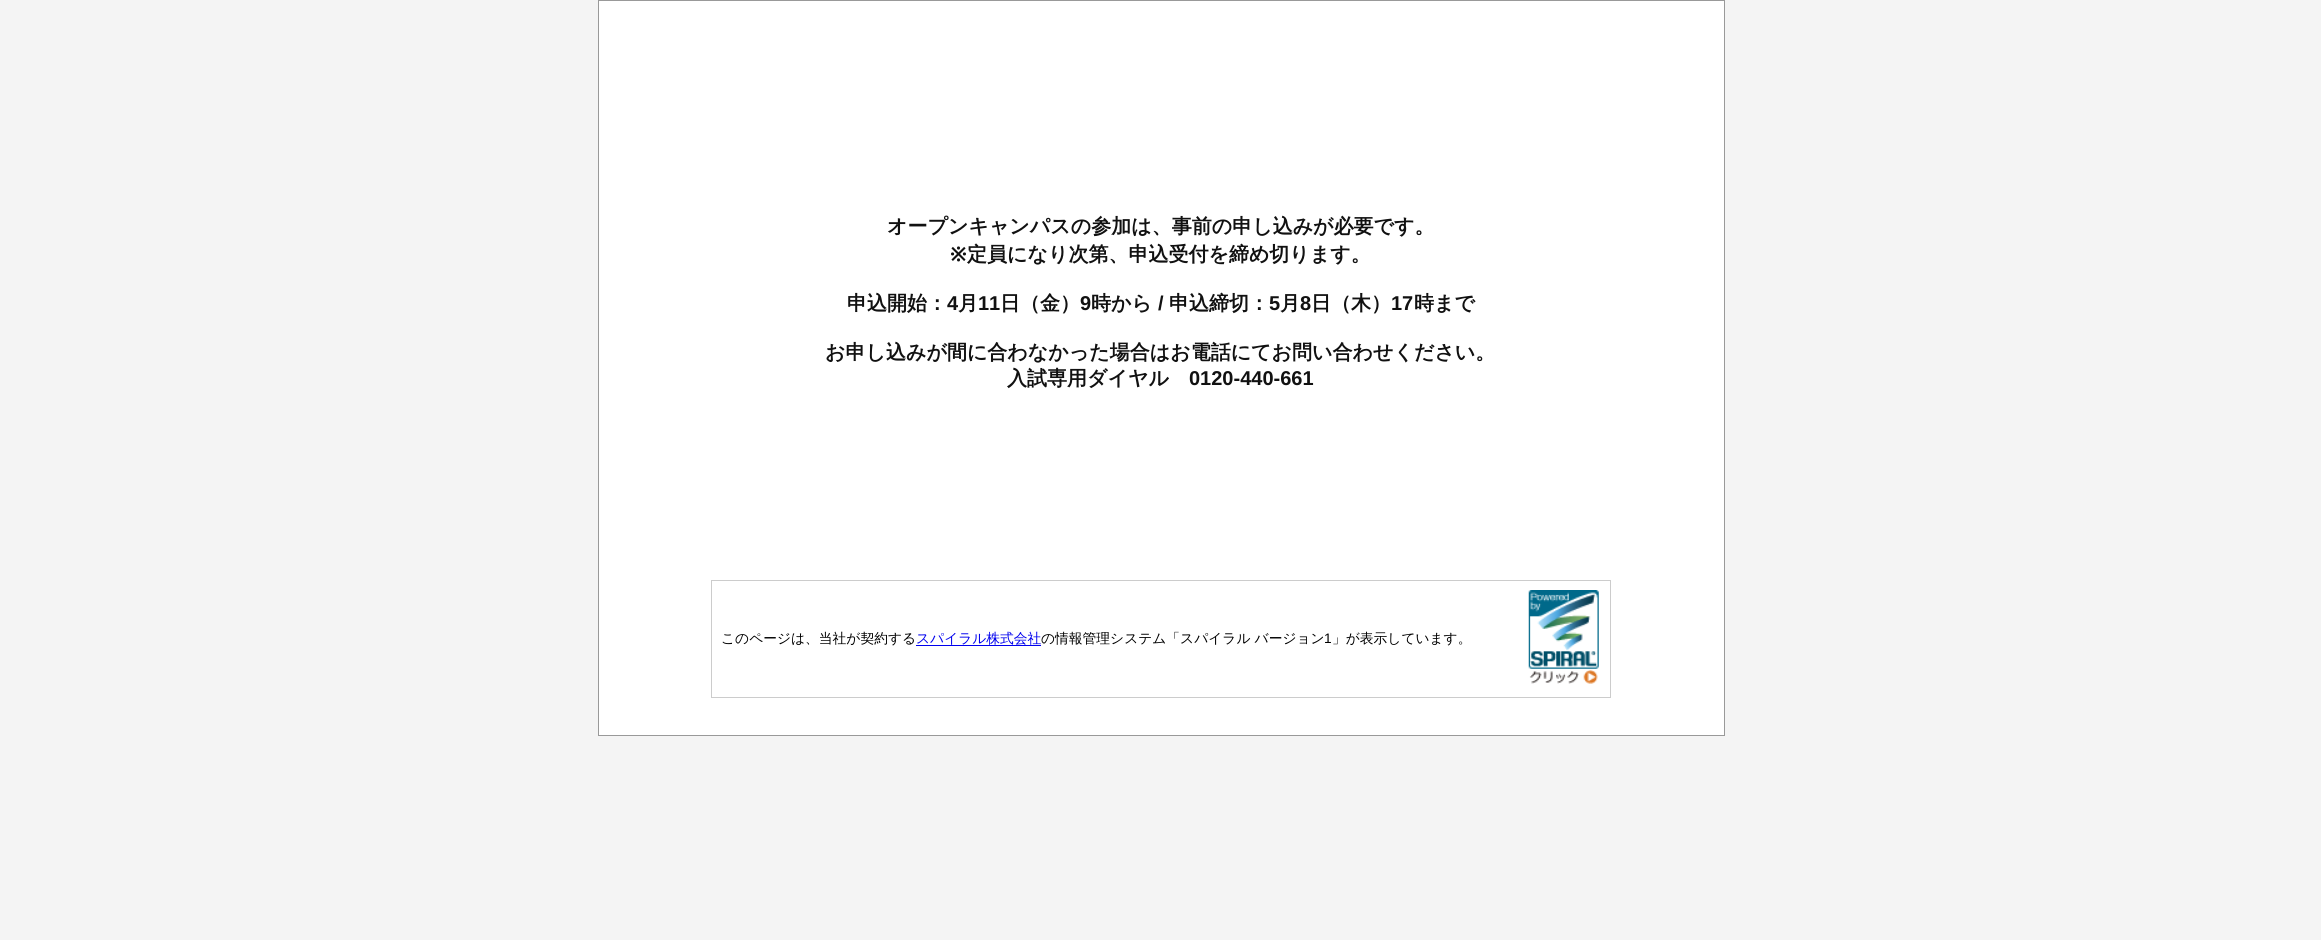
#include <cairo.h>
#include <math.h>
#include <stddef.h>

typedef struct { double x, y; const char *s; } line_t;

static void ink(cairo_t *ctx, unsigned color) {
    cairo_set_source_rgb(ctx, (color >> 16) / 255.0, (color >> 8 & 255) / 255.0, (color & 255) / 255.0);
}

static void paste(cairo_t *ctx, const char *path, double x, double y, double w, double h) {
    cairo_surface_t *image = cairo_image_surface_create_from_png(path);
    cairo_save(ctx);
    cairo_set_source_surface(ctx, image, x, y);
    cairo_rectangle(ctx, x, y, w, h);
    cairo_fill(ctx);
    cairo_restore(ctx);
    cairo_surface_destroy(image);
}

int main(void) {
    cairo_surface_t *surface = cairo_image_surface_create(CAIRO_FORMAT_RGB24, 2321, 940);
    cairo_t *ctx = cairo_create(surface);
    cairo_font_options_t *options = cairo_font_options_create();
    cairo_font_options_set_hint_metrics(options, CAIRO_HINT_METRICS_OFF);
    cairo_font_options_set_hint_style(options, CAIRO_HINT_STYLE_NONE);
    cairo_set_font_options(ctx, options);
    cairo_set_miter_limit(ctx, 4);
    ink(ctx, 0xF4F4F4);
    cairo_paint(ctx);
    ink(ctx, 0xFFFFFF);
    cairo_rectangle(ctx, 598.5, 0.5, 1126, 735);
    cairo_fill_preserve(ctx);
    ink(ctx, 0x999999);
    cairo_set_line_width(ctx, 1);
    cairo_stroke(ctx);
    cairo_select_font_face(ctx, "WenQuanYi Zen Hei", CAIRO_FONT_SLANT_NORMAL, CAIRO_FONT_WEIGHT_BOLD);
    cairo_set_font_size(ctx, 20);
    ink(ctx, 0x111111);
    cairo_move_to(ctx, 887, 233);
    cairo_show_text(ctx, "オープンキャンパスの参加は、事前の申し込みが必要です。");
    cairo_select_font_face(ctx, "Noto Sans", CAIRO_FONT_SLANT_NORMAL, CAIRO_FONT_WEIGHT_BOLD);
    cairo_move_to(ctx, 950, 261);
    cairo_show_text(ctx, "※");
    cairo_select_font_face(ctx, "WenQuanYi Zen Hei", CAIRO_FONT_SLANT_NORMAL, CAIRO_FONT_WEIGHT_BOLD);
    cairo_move_to(ctx, 967, 261);
    cairo_show_text(ctx, "定員になり次第、申込受付を締め切ります。");
    cairo_move_to(ctx, 847, 310);
    cairo_show_text(ctx, "申込開始：");
    cairo_select_font_face(ctx, "Liberation Sans", CAIRO_FONT_SLANT_NORMAL, CAIRO_FONT_WEIGHT_BOLD);
    cairo_move_to(ctx, 947, 310);
    cairo_show_text(ctx, "4");
    cairo_select_font_face(ctx, "WenQuanYi Zen Hei", CAIRO_FONT_SLANT_NORMAL, CAIRO_FONT_WEIGHT_BOLD);
    cairo_move_to(ctx, 958, 310);
    cairo_show_text(ctx, "月");
    cairo_select_font_face(ctx, "Liberation Sans", CAIRO_FONT_SLANT_NORMAL, CAIRO_FONT_WEIGHT_BOLD);
    cairo_move_to(ctx, 978, 310);
    cairo_show_text(ctx, "11");
    cairo_select_font_face(ctx, "WenQuanYi Zen Hei", CAIRO_FONT_SLANT_NORMAL, CAIRO_FONT_WEIGHT_BOLD);
    cairo_move_to(ctx, 1000, 310);
    cairo_show_text(ctx, "日（金）");
    cairo_select_font_face(ctx, "Liberation Sans", CAIRO_FONT_SLANT_NORMAL, CAIRO_FONT_WEIGHT_BOLD);
    cairo_move_to(ctx, 1080, 310);
    cairo_show_text(ctx, "9");
    cairo_select_font_face(ctx, "WenQuanYi Zen Hei", CAIRO_FONT_SLANT_NORMAL, CAIRO_FONT_WEIGHT_BOLD);
    cairo_move_to(ctx, 1091, 310);
    cairo_show_text(ctx, "時から");
    cairo_select_font_face(ctx, "Liberation Sans", CAIRO_FONT_SLANT_NORMAL, CAIRO_FONT_WEIGHT_BOLD);
    cairo_move_to(ctx, 1158, 310);
    cairo_show_text(ctx, "/");
    cairo_select_font_face(ctx, "WenQuanYi Zen Hei", CAIRO_FONT_SLANT_NORMAL, CAIRO_FONT_WEIGHT_BOLD);
    cairo_move_to(ctx, 1169, 310);
    cairo_show_text(ctx, "申込締切：");
    cairo_select_font_face(ctx, "Liberation Sans", CAIRO_FONT_SLANT_NORMAL, CAIRO_FONT_WEIGHT_BOLD);
    cairo_move_to(ctx, 1269, 310);
    cairo_show_text(ctx, "5");
    cairo_select_font_face(ctx, "WenQuanYi Zen Hei", CAIRO_FONT_SLANT_NORMAL, CAIRO_FONT_WEIGHT_BOLD);
    cairo_move_to(ctx, 1280, 310);
    cairo_show_text(ctx, "月");
    cairo_select_font_face(ctx, "Liberation Sans", CAIRO_FONT_SLANT_NORMAL, CAIRO_FONT_WEIGHT_BOLD);
    cairo_move_to(ctx, 1300, 310);
    cairo_show_text(ctx, "8");
    cairo_select_font_face(ctx, "WenQuanYi Zen Hei", CAIRO_FONT_SLANT_NORMAL, CAIRO_FONT_WEIGHT_BOLD);
    cairo_move_to(ctx, 1311, 310);
    cairo_show_text(ctx, "日（木）");
    cairo_select_font_face(ctx, "Liberation Sans", CAIRO_FONT_SLANT_NORMAL, CAIRO_FONT_WEIGHT_BOLD);
    cairo_move_to(ctx, 1391, 310);
    cairo_show_text(ctx, "17");
    cairo_select_font_face(ctx, "WenQuanYi Zen Hei", CAIRO_FONT_SLANT_NORMAL, CAIRO_FONT_WEIGHT_BOLD);
    {
        static const line_t items[] = {
            {1414, 310, "時まで"},
            {825, 359, "お申し込みが間に合わなかった場合はお電話にてお問い合わせください。"},
            {1007, 385, "入試専用ダイヤル"},
        };
        for (size_t i = 0; i < sizeof items / sizeof *items; i++) {
            cairo_move_to(ctx, items[i].x, items[i].y);
            cairo_show_text(ctx, items[i].s);
        }
    }
    cairo_select_font_face(ctx, "Liberation Sans", CAIRO_FONT_SLANT_NORMAL, CAIRO_FONT_WEIGHT_BOLD);
    cairo_move_to(ctx, 1189, 385);
    cairo_show_text(ctx, "0120-440-661");
    cairo_rectangle(ctx, 711.5, 580.5, 899, 117);
    ink(ctx, 0xCCCCCC);
    cairo_stroke(ctx);
    cairo_select_font_face(ctx, "WenQuanYi Zen Hei Medium", CAIRO_FONT_SLANT_NORMAL, CAIRO_FONT_WEIGHT_NORMAL);
    cairo_set_font_size(ctx, 13.75);
    ink(ctx, 0x000000);
    cairo_move_to(ctx, 721, 643);
    cairo_show_text(ctx, "このページは、当社が契約する");
    ink(ctx, 0x0000EE);
    cairo_move_to(ctx, 916, 643);
    cairo_show_text(ctx, "スパイラル株式会社");
    cairo_rectangle(ctx, 916, 645, 125, 1);
    cairo_fill(ctx);
    ink(ctx, 0x000000);
    cairo_move_to(ctx, 1041, 643);
    cairo_show_text(ctx, "の情報管理システム「スパイラル バージョン");
    cairo_select_font_face(ctx, "Liberation Sans", CAIRO_FONT_SLANT_NORMAL, CAIRO_FONT_WEIGHT_NORMAL);
    cairo_move_to(ctx, 1324, 643);
    cairo_show_text(ctx, "1");
    cairo_select_font_face(ctx, "WenQuanYi Zen Hei Medium", CAIRO_FONT_SLANT_NORMAL, CAIRO_FONT_WEIGHT_NORMAL);
    cairo_move_to(ctx, 1332, 643);
    cairo_show_text(ctx, "」が表示しています。");
    paste(ctx, "media/1.png", 1528, 590, 71, 94);
    cairo_surface_write_to_png(surface, "image.png");
    cairo_font_options_destroy(options);
    cairo_destroy(ctx);
    cairo_surface_destroy(surface);
    return 0;
}
